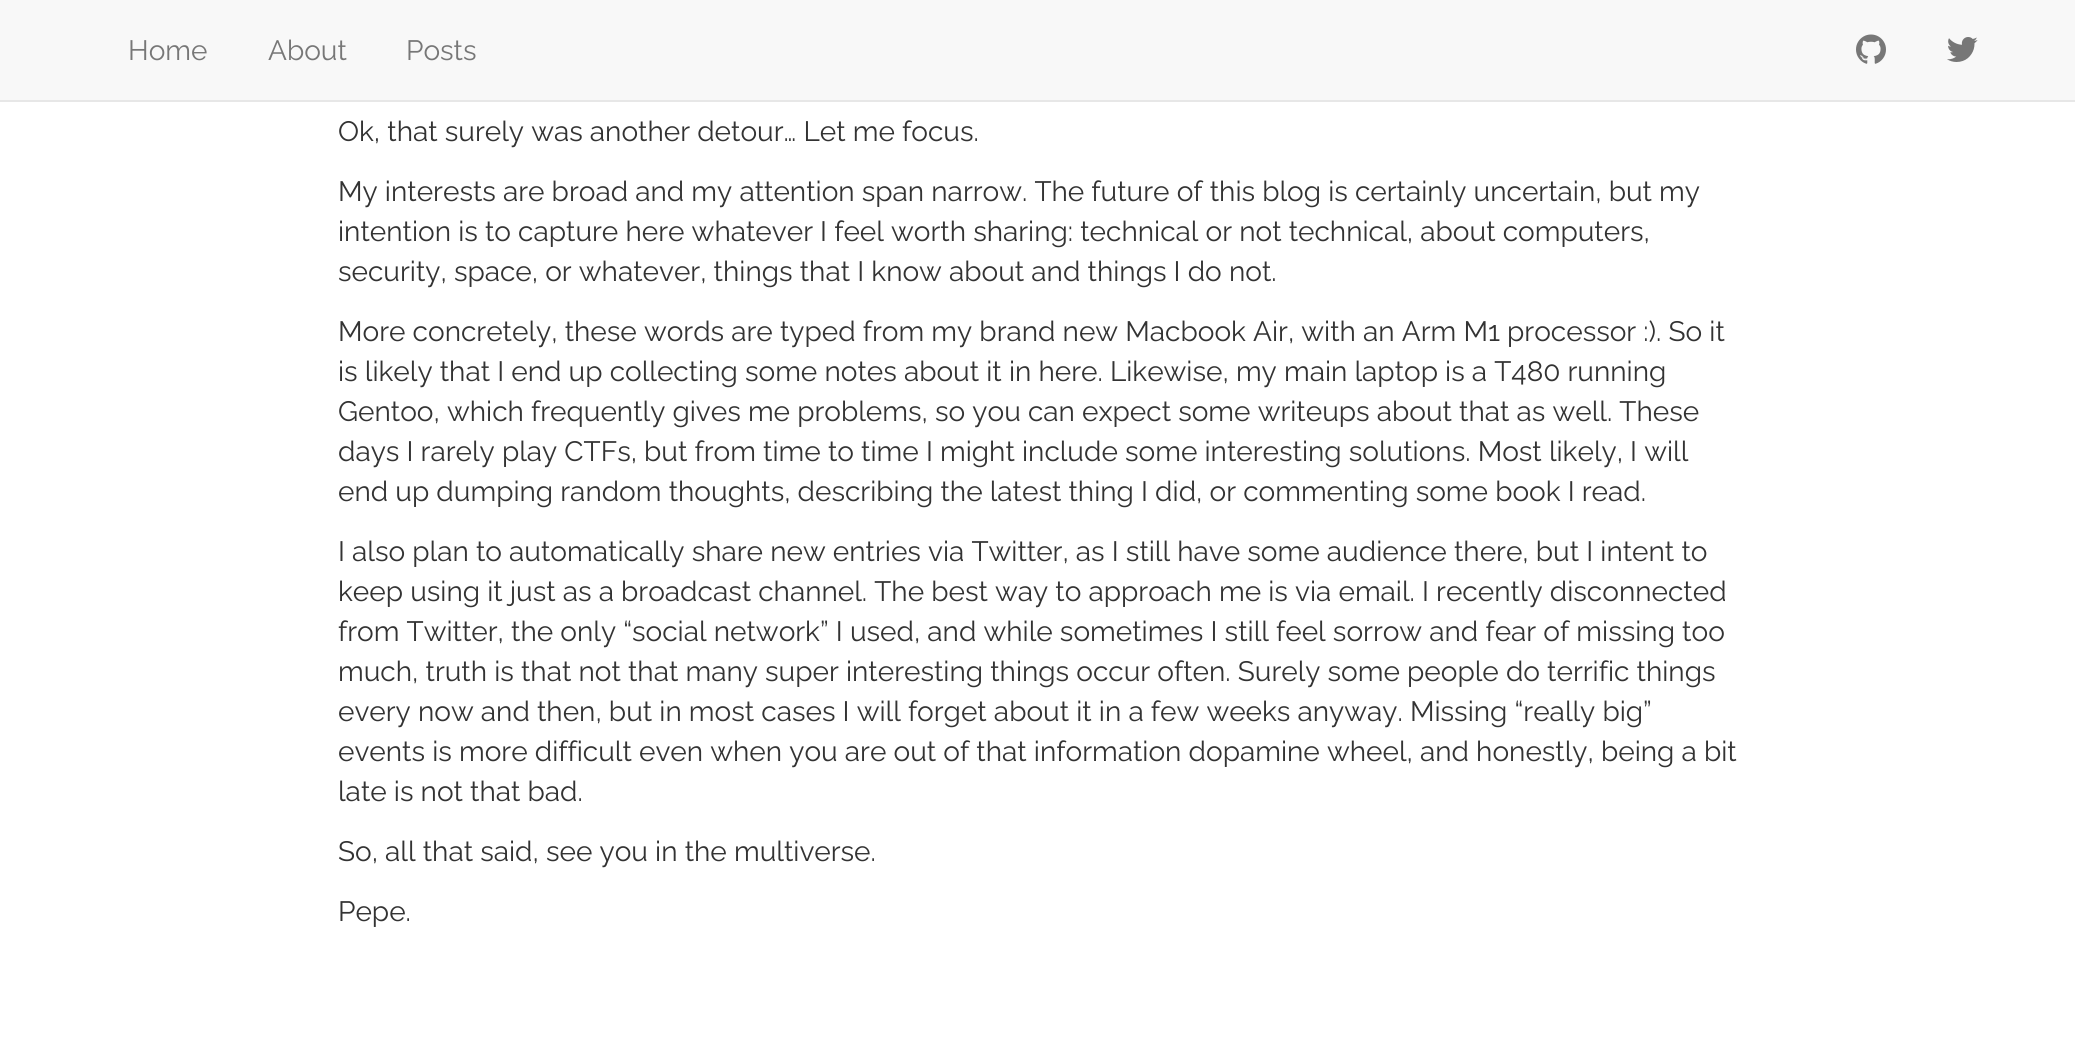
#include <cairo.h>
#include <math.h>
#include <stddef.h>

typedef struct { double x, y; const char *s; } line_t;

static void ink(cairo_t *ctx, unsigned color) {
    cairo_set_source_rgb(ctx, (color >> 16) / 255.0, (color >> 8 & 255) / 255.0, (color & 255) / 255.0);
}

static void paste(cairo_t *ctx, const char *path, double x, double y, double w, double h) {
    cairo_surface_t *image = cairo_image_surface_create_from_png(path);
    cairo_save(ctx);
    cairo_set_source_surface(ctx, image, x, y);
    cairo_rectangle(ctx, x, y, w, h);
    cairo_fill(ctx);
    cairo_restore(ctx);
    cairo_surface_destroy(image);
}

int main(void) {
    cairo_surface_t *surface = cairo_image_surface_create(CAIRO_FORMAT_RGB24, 2075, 1047);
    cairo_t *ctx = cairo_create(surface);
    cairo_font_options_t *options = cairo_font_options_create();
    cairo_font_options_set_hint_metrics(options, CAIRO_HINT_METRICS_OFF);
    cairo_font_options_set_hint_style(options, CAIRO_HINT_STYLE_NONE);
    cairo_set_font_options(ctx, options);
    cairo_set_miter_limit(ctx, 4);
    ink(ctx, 0xFFFFFF);
    cairo_paint(ctx);
    ink(ctx, 0xF8F8F8);
    cairo_rectangle(ctx, 0, 0, 2075, 100);
    cairo_fill(ctx);
    ink(ctx, 0xE7E7E7);
    cairo_rectangle(ctx, 0, 100, 2075, 2);
    cairo_fill(ctx);
    cairo_select_font_face(ctx, "Raleway Thin", CAIRO_FONT_SLANT_NORMAL, CAIRO_FONT_WEIGHT_NORMAL);
    cairo_set_font_size(ctx, 28);
    ink(ctx, 0x777777);
    {
        static const line_t items[] = {
            {128, 60, "Home"},
            {268, 60, "About"},
            {406, 60, "Posts"},
        };
        for (size_t i = 0; i < sizeof items / sizeof *items; i++) {
            cairo_move_to(ctx, items[i].x, items[i].y);
            cairo_show_text(ctx, items[i].s);
        }
    }
    paste(ctx, "media/1.png", 1856, 34, 30, 30);
    paste(ctx, "media/2.png", 1947, 37, 31, 25);
    ink(ctx, 0x333333);
    {
        static const line_t items[] = {
            {338, 141, "Ok, that surely was another detour… Let me focus."},
            {338, 201, "My interests are broad and my attention span narrow. The future of this blog is certainly uncertain, but my"},
            {338, 241, "intention is to capture here whatever I feel worth sharing: technical or not technical, about computers,"},
            {338, 281, "security, space, or whatever, things that I know about and things I do not."},
            {338, 341, "More concretely, these words are typed from my brand new Macbook Air, with an Arm M1 processor :). So it"},
            {338, 381, "is likely that I end up collecting some notes about it in here. Likewise, my main laptop is a T480 running"},
            {338, 421, "Gentoo, which frequently gives me problems, so you can expect some writeups about that as well. These"},
            {338, 461, "days I rarely play CTFs, but from time to time I might include some interesting solutions. Most likely, I will"},
            {338, 501, "end up dumping random thoughts, describing the latest thing I did, or commenting some book I read."},
            {338, 561, "I also plan to automatically share new entries via Twitter, as I still have some audience there, but I intent to"},
            {338, 601, "keep using it just as a broadcast channel. The best way to approach me is via email. I recently disconnected"},
            {338, 641, "from Twitter, the only “social network” I used, and while sometimes I still feel sorrow and fear of missing too"},
            {338, 681, "much, truth is that not that many super interesting things occur often. Surely some people do terrific things"},
            {338, 721, "every now and then, but in most cases I will forget about it in a few weeks anyway. Missing “really big”"},
            {338, 761, "events is more difficult even when you are out of that information dopamine wheel, and honestly, being a bit"},
            {338, 801, "late is not that bad."},
            {338, 861, "So, all that said, see you in the multiverse."},
            {338, 921, "Pepe."},
        };
        for (size_t i = 0; i < sizeof items / sizeof *items; i++) {
            cairo_move_to(ctx, items[i].x, items[i].y);
            cairo_show_text(ctx, items[i].s);
        }
    }
    cairo_surface_write_to_png(surface, "image.png");
    cairo_font_options_destroy(options);
    cairo_destroy(ctx);
    cairo_surface_destroy(surface);
    return 0;
}
